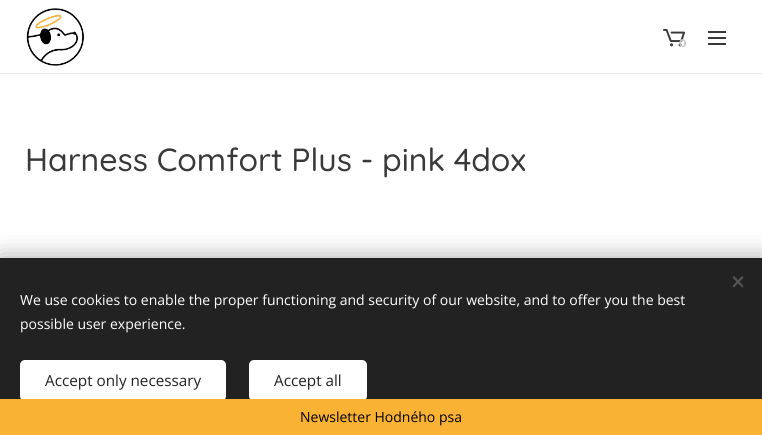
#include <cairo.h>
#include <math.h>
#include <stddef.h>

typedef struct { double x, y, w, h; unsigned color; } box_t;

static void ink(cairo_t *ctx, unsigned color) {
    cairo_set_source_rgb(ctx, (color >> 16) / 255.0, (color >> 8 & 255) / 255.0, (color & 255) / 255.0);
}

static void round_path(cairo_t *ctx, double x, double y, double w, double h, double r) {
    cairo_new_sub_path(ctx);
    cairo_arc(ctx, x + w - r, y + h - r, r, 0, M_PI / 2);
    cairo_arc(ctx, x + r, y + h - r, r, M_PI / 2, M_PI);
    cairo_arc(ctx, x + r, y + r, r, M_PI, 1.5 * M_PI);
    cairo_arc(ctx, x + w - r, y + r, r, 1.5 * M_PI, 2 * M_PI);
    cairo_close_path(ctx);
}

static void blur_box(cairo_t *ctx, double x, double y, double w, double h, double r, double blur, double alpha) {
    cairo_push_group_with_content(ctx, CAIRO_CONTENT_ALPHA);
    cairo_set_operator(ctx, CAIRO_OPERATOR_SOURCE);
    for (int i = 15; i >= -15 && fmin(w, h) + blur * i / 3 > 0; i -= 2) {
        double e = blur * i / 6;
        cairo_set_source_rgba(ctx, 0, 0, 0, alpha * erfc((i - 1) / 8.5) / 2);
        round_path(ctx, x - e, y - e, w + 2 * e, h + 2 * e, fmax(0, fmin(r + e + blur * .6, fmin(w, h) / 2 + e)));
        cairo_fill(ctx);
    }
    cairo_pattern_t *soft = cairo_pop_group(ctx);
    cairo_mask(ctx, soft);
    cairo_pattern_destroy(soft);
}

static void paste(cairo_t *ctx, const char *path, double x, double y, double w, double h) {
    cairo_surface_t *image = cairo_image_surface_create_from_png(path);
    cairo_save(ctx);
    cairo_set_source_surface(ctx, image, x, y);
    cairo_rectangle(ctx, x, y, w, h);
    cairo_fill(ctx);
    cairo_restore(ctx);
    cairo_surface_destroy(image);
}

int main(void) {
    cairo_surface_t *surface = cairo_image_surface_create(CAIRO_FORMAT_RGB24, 762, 435);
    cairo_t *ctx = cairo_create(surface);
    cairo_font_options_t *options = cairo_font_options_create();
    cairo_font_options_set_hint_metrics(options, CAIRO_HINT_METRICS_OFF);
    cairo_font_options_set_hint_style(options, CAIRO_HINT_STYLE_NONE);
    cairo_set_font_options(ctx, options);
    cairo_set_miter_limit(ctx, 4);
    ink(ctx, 0xFFFFFF);
    cairo_paint(ctx);
    paste(ctx, "media/1.png", 26, 8, 58, 58);
    paste(ctx, "media/2.png", 663, 29, 22, 18);
    cairo_select_font_face(ctx, "Montserrat", CAIRO_FONT_SLANT_NORMAL, CAIRO_FONT_WEIGHT_BOLD);
    cairo_set_font_size(ctx, 11);
    ink(ctx, 0xCACACA);
    cairo_move_to(ctx, 679, 47);
    cairo_show_text(ctx, "0");
    {
        static const box_t items[] = {
            {708, 37, 18, 2, 0x393939},
            {708, 31, 18, 2, 0x393939},
            {708, 43, 18, 2, 0x393939},
            {0, 73, 762, 1, 0xE8E8E8},
        };
        for (size_t i = 0; i < sizeof items / sizeof *items; i++) {
            ink(ctx, items[i].color);
            cairo_rectangle(ctx, items[i].x, items[i].y, items[i].w, items[i].h);
            cairo_fill(ctx);
        }
    }
    cairo_select_font_face(ctx, "Quicksand Medium", CAIRO_FONT_SLANT_NORMAL, CAIRO_FONT_WEIGHT_NORMAL);
    cairo_set_font_size(ctx, 32);
    ink(ctx, 0x393939);
    cairo_move_to(ctx, 25, 171);
    cairo_show_text(ctx, "Harness Comfort Plus - pink 4dox");
    ink(ctx, 0x000000);
    blur_box(ctx, 0, 258, 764, 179, 0, 12.5, 0.33);
    ink(ctx, 0x222222);
    cairo_rectangle(ctx, 0, 258, 762, 141);
    cairo_fill(ctx);
    ink(ctx, 0x555555);
    cairo_new_path(ctx);
    cairo_move_to(ctx, 732.5, 286);
    cairo_line_to(ctx, 742, 276);
    cairo_line_to(ctx, 743.5, 277.5);
    cairo_line_to(ctx, 734, 287.5);
    cairo_close_path(ctx);
    cairo_fill(ctx);
    cairo_new_path(ctx);
    cairo_move_to(ctx, 734, 276);
    cairo_line_to(ctx, 743.5, 286);
    cairo_line_to(ctx, 742, 287.5);
    cairo_line_to(ctx, 732.5, 277.5);
    cairo_close_path(ctx);
    cairo_fill(ctx);
    cairo_select_font_face(ctx, "Open Sans", CAIRO_FONT_SLANT_NORMAL, CAIRO_FONT_WEIGHT_NORMAL);
    cairo_set_font_size(ctx, 14);
    ink(ctx, 0xFFFFFF);
    cairo_move_to(ctx, 20, 305);
    cairo_show_text(ctx, "We use cookies to enable the proper functioning and security of our website, and to offer you the best");
    cairo_move_to(ctx, 20, 329);
    cairo_show_text(ctx, "possible user experience.");
    round_path(ctx, 20, 360, 206, 41, 5);
    cairo_fill(ctx);
    cairo_set_font_size(ctx, 15.25);
    ink(ctx, 0x222222);
    cairo_move_to(ctx, 45, 386);
    cairo_show_text(ctx, "Accept only necessary");
    ink(ctx, 0xFFFFFF);
    round_path(ctx, 249, 360, 118, 41, 5);
    cairo_fill(ctx);
    ink(ctx, 0x222222);
    cairo_move_to(ctx, 274, 386);
    cairo_show_text(ctx, "Accept all");
    ink(ctx, 0xF9B233);
    cairo_rectangle(ctx, 0, 399, 762, 36);
    cairo_fill(ctx);
    cairo_select_font_face(ctx, "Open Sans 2", CAIRO_FONT_SLANT_NORMAL, CAIRO_FONT_WEIGHT_NORMAL);
    cairo_set_font_size(ctx, 14);
    ink(ctx, 0x000000);
    cairo_move_to(ctx, 300, 422);
    cairo_show_text(ctx, "Newsletter Hodného psa");
    cairo_surface_write_to_png(surface, "image.png");
    cairo_font_options_destroy(options);
    cairo_destroy(ctx);
    cairo_surface_destroy(surface);
    return 0;
}
